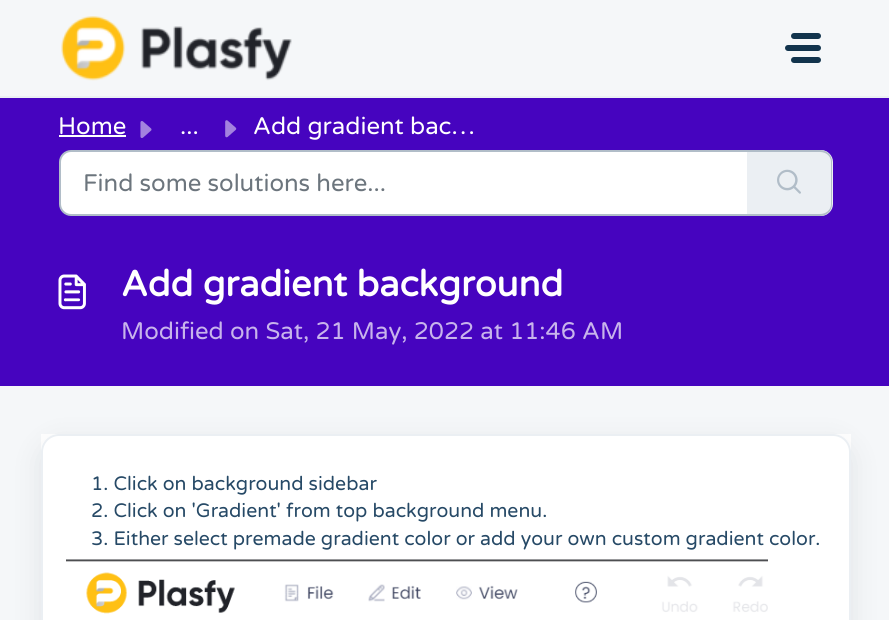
#include <cairo.h>
#include <math.h>
#include <stddef.h>

typedef struct { double x, y; const char *s; } line_t;

static void ink(cairo_t *ctx, unsigned color) {
    cairo_set_source_rgb(ctx, (color >> 16) / 255.0, (color >> 8 & 255) / 255.0, (color & 255) / 255.0);
}

static void round_path(cairo_t *ctx, double x, double y, double w, double h, double r) {
    cairo_new_sub_path(ctx);
    cairo_arc(ctx, x + w - r, y + h - r, r, 0, M_PI / 2);
    cairo_arc(ctx, x + r, y + h - r, r, M_PI / 2, M_PI);
    cairo_arc(ctx, x + r, y + r, r, M_PI, 1.5 * M_PI);
    cairo_arc(ctx, x + w - r, y + r, r, 1.5 * M_PI, 2 * M_PI);
    cairo_close_path(ctx);
}

static void blur_box(cairo_t *ctx, double x, double y, double w, double h, double r, double blur, double alpha) {
    cairo_push_group_with_content(ctx, CAIRO_CONTENT_ALPHA);
    cairo_set_operator(ctx, CAIRO_OPERATOR_SOURCE);
    for (int i = 15; i >= -15 && fmin(w, h) + blur * i / 3 > 0; i -= 2) {
        double e = blur * i / 6;
        cairo_set_source_rgba(ctx, 0, 0, 0, alpha * erfc((i - 1) / 8.5) / 2);
        round_path(ctx, x - e, y - e, w + 2 * e, h + 2 * e, fmax(0, fmin(r + e + blur * .6, fmin(w, h) / 2 + e)));
        cairo_fill(ctx);
    }
    cairo_pattern_t *soft = cairo_pop_group(ctx);
    cairo_mask(ctx, soft);
    cairo_pattern_destroy(soft);
}

static void paste(cairo_t *ctx, const char *path, double x, double y, double w, double h) {
    cairo_surface_t *image = cairo_image_surface_create_from_png(path);
    cairo_save(ctx);
    cairo_set_source_surface(ctx, image, x, y);
    cairo_rectangle(ctx, x, y, w, h);
    cairo_fill(ctx);
    cairo_restore(ctx);
    cairo_surface_destroy(image);
}

int main(void) {
    cairo_surface_t *surface = cairo_image_surface_create(CAIRO_FORMAT_RGB24, 889, 620);
    cairo_t *ctx = cairo_create(surface);
    cairo_font_options_t *options = cairo_font_options_create();
    cairo_font_options_set_hint_metrics(options, CAIRO_HINT_METRICS_OFF);
    cairo_font_options_set_hint_style(options, CAIRO_HINT_STYLE_NONE);
    cairo_set_font_options(ctx, options);
    cairo_set_miter_limit(ctx, 4);
    ink(ctx, 0xF5F7F9);
    cairo_paint(ctx);
    ink(ctx, 0xEBEFF3);
    cairo_rectangle(ctx, 0, 96, 889, 2);
    cairo_fill(ctx);
    paste(ctx, "media/1.png", 61, 16, 231, 65);
    ink(ctx, 0x12344D);
    round_path(ctx, 791, 33, 30, 6, 3);
    cairo_fill(ctx);
    round_path(ctx, 785, 45, 36, 6, 3);
    cairo_fill(ctx);
    round_path(ctx, 791, 57, 30, 6, 3);
    cairo_fill(ctx);
    ink(ctx, 0x4604BF);
    cairo_rectangle(ctx, 0, 98, 889, 288);
    cairo_fill(ctx);
    cairo_select_font_face(ctx, "Varela Round", CAIRO_FONT_SLANT_NORMAL, CAIRO_FONT_WEIGHT_NORMAL);
    cairo_set_font_size(ctx, 24);
    ink(ctx, 0xFFFFFF);
    cairo_move_to(ctx, 58, 134);
    cairo_show_text(ctx, "Home");
    cairo_rectangle(ctx, 59, 135, 67, 2);
    cairo_fill(ctx);
    paste(ctx, "media/2.png", 140, 121, 12, 17);
    cairo_move_to(ctx, 180, 134);
    cairo_show_text(ctx, "...");
    paste(ctx, "media/3.png", 225, 120, 12, 18);
    cairo_move_to(ctx, 253, 134);
    cairo_show_text(ctx, "Add gradient bac…");
    cairo_new_path(ctx);
    cairo_move_to(ctx, 71, 151);
    cairo_line_to(ctx, 748, 151);
    cairo_line_to(ctx, 748, 215);
    cairo_line_to(ctx, 71, 215);
    cairo_curve_to(ctx, 65, 215, 60, 210, 60, 204);
    cairo_line_to(ctx, 60, 162);
    cairo_curve_to(ctx, 60, 156, 65, 151, 71, 151);
    cairo_close_path(ctx);
    cairo_fill_preserve(ctx);
    ink(ctx, 0xB1BDC8);
    cairo_stroke(ctx);
    ink(ctx, 0x6C757D);
    cairo_move_to(ctx, 83, 191);
    cairo_show_text(ctx, "Find some solutions here...");
    ink(ctx, 0xEBEFF3);
    cairo_new_path(ctx);
    cairo_move_to(ctx, 747, 150);
    cairo_line_to(ctx, 821, 150);
    cairo_curve_to(ctx, 827.5, 150, 833, 155.5, 833, 162);
    cairo_line_to(ctx, 833, 204);
    cairo_curve_to(ctx, 833, 210.5, 827.5, 216, 821, 216);
    cairo_line_to(ctx, 747, 216);
    cairo_close_path(ctx);
    cairo_fill(ctx);
    ink(ctx, 0xB1BDC8);
    cairo_set_fill_rule(ctx, CAIRO_FILL_RULE_EVEN_ODD);
    cairo_new_path(ctx);
    cairo_move_to(ctx, 747, 150);
    cairo_line_to(ctx, 820, 150);
    cairo_curve_to(ctx, 827, 150, 832, 155, 832, 162);
    cairo_line_to(ctx, 832, 204);
    cairo_curve_to(ctx, 832, 211, 827, 216, 820, 216);
    cairo_line_to(ctx, 747, 216);
    cairo_close_path(ctx);
    cairo_move_to(ctx, 747, 152);
    cairo_line_to(ctx, 820, 152);
    cairo_curve_to(ctx, 826, 152, 831, 156, 831, 162);
    cairo_line_to(ctx, 831, 204);
    cairo_curve_to(ctx, 831, 210, 826, 214, 820, 214);
    cairo_line_to(ctx, 747, 214);
    cairo_close_path(ctx);
    cairo_fill(ctx);
    paste(ctx, "media/4.png", 777, 169, 24, 25);
    paste(ctx, "media/5.png", 58, 274, 28, 36);
    cairo_select_font_face(ctx, "Varela Round", CAIRO_FONT_SLANT_NORMAL, CAIRO_FONT_WEIGHT_BOLD);
    cairo_set_font_size(ctx, 36);
    ink(ctx, 0xFFFFFF);
    cairo_move_to(ctx, 121, 296);
    cairo_show_text(ctx, "Add gradient background");
    cairo_select_font_face(ctx, "Varela Round", CAIRO_FONT_SLANT_NORMAL, CAIRO_FONT_WEIGHT_NORMAL);
    cairo_set_font_size(ctx, 24);
    ink(ctx, 0xC8B4EC);
    cairo_move_to(ctx, 121, 339);
    cairo_show_text(ctx, "Modified on Sat, 21 May, 2022 at 11:46 AM");
    ink(ctx, 0xFFFFFF);
    cairo_rectangle(ctx, 41, 434, 810, 186);
    cairo_fill(ctx);
    cairo_save(ctx);
    cairo_new_path(ctx);
    cairo_move_to(ctx, 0, 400);
    cairo_line_to(ctx, 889, 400);
    cairo_line_to(ctx, 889, 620);
    cairo_line_to(ctx, 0, 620);
    cairo_close_path(ctx);
    cairo_move_to(ctx, 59, 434);
    cairo_line_to(ctx, 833, 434);
    cairo_curve_to(ctx, 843, 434, 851, 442, 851, 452);
    cairo_line_to(ctx, 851, 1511);
    cairo_curve_to(ctx, 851, 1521, 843, 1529, 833, 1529);
    cairo_line_to(ctx, 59, 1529);
    cairo_curve_to(ctx, 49, 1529, 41, 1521, 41, 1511);
    cairo_line_to(ctx, 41, 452);
    cairo_curve_to(ctx, 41, 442, 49, 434, 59, 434);
    cairo_close_path(ctx);
    cairo_clip(ctx);
    ink(ctx, 0x27313A);
    blur_box(ctx, 41, 443, 810, 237, 18, 14, 0.1);
    cairo_restore(ctx);
    round_path(ctx, 42, 435, 808, 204, 17);
    ink(ctx, 0xEBEFF3);
    cairo_stroke(ctx);
    cairo_set_font_size(ctx, 19.5);
    ink(ctx, 0x264966);
    {
        static const line_t items[] = {
            {91, 490, "1. Click on background sidebar"},
            {91, 517, "2. Click on 'Gradient' from top background menu."},
            {91, 545, "3. Either select premade gradient color or add your own custom gradient color."},
        };
        for (size_t i = 0; i < sizeof items / sizeof *items; i++) {
            cairo_move_to(ctx, items[i].x, items[i].y);
            cairo_show_text(ctx, items[i].s);
        }
    }
    paste(ctx, "media/6.png", 66, 559, 702, 55);
    cairo_surface_write_to_png(surface, "image.png");
    cairo_font_options_destroy(options);
    cairo_destroy(ctx);
    cairo_surface_destroy(surface);
    return 0;
}
